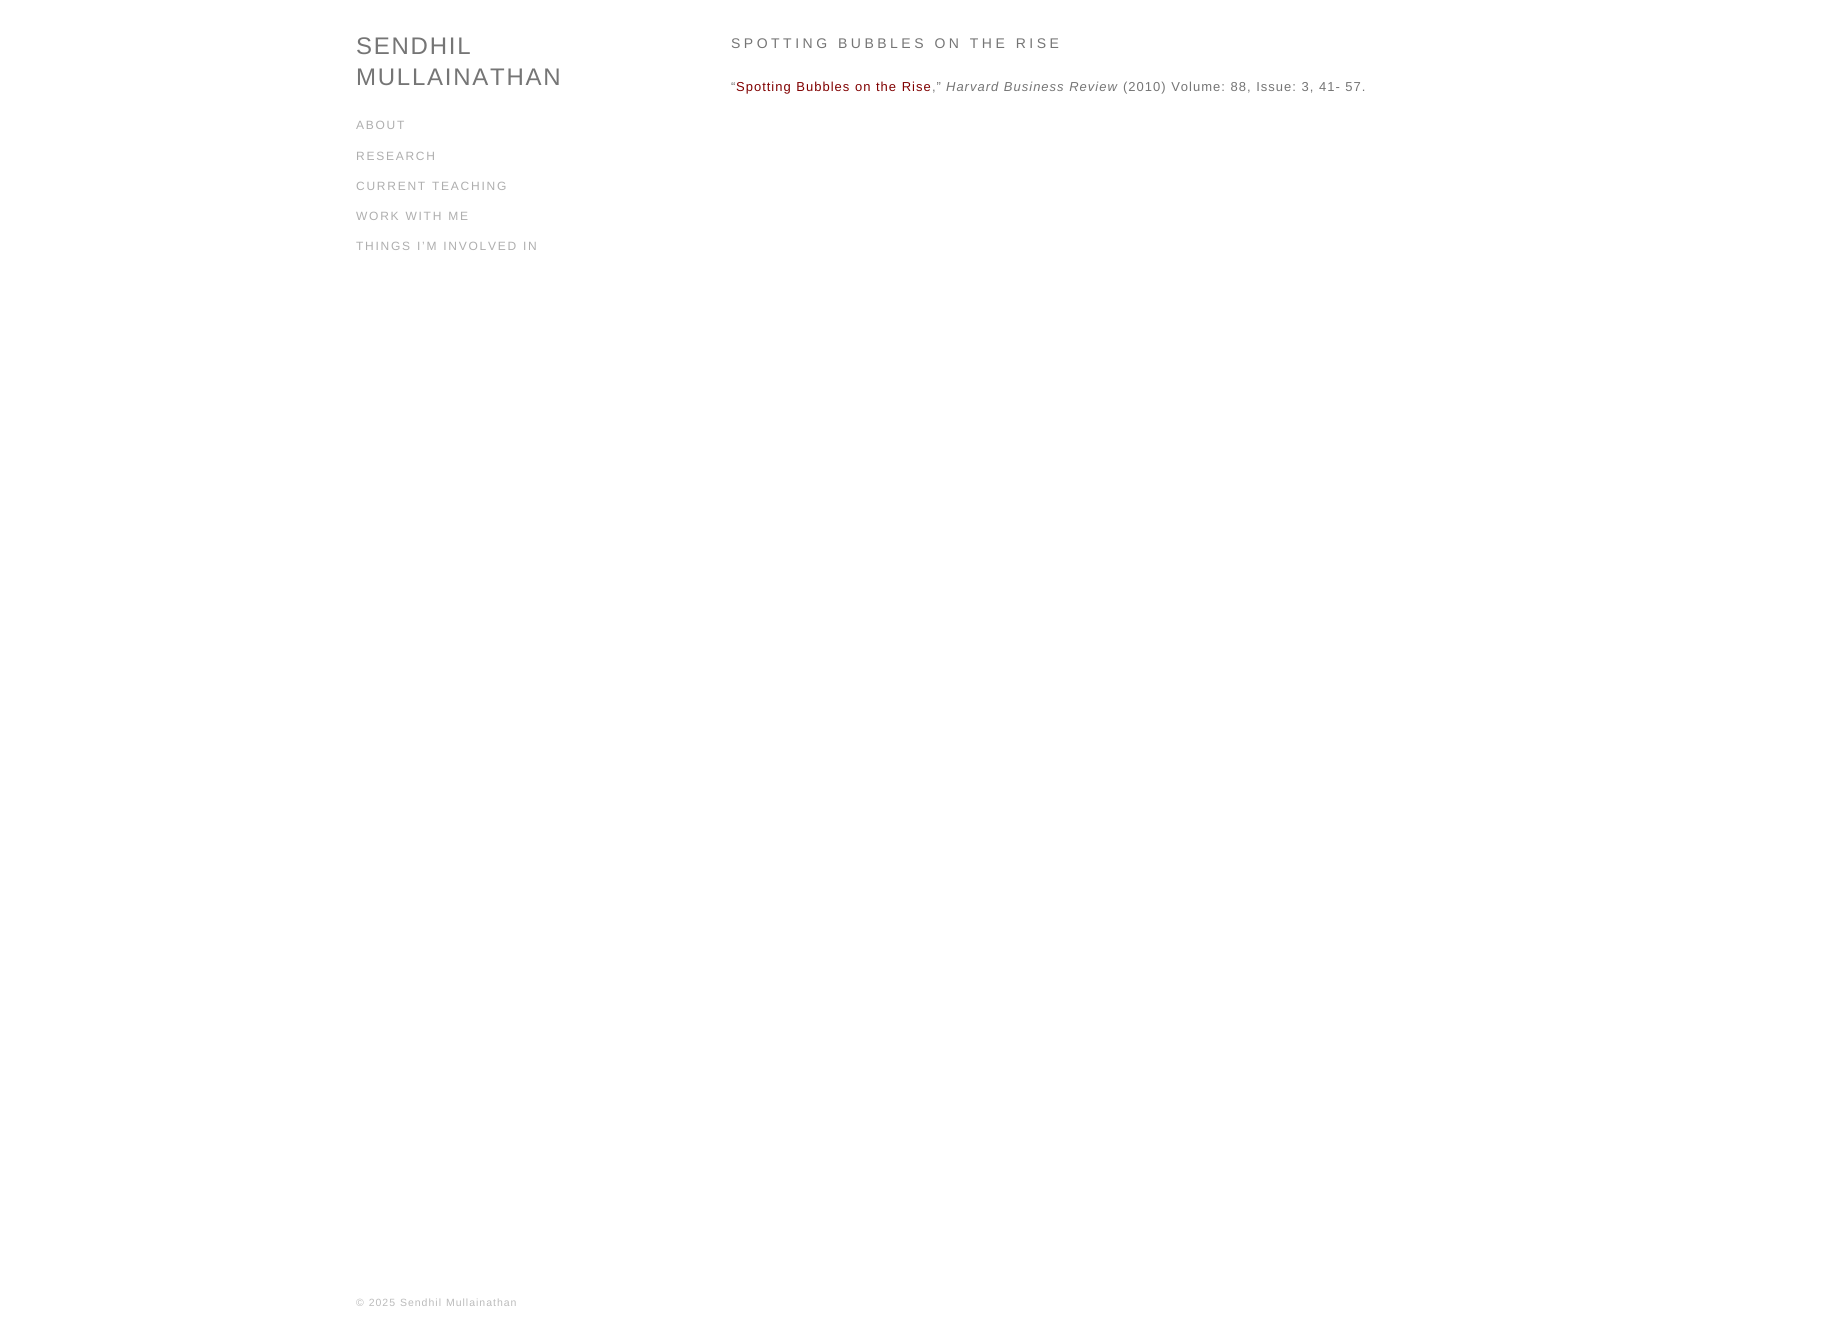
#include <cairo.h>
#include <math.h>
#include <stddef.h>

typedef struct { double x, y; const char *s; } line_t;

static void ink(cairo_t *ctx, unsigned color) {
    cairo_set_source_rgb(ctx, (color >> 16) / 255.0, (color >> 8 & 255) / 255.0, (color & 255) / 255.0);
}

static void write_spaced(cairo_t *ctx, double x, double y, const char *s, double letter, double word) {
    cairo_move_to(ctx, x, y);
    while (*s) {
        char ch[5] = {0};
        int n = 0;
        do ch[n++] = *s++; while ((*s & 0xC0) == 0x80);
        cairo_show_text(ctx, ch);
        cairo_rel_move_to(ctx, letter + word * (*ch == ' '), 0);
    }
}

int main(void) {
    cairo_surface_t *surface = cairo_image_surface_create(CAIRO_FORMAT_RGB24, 1821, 1340);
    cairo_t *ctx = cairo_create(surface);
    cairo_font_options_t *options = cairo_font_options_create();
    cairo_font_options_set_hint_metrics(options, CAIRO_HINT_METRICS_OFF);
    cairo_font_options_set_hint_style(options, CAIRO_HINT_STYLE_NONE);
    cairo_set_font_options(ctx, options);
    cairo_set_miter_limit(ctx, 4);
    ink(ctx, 0xFFFFFF);
    cairo_paint(ctx);
    cairo_select_font_face(ctx, "Liberation Sans", CAIRO_FONT_SLANT_NORMAL, CAIRO_FONT_WEIGHT_NORMAL);
    cairo_set_font_size(ctx, 24);
    ink(ctx, 0x757575);
    write_spaced(ctx, 356, 54, "SENDHIL", 1.75, 0);
    write_spaced(ctx, 356, 85, "MULLAINATHAN", 1.75, 0);
    cairo_set_font_size(ctx, 12);
    ink(ctx, 0xAEAEAE);
    {
        static const line_t items[] = {
            {356, 129, "ABOUT"},
            {356, 160, "RESEARCH"},
            {356, 190, "CURRENT TEACHING"},
            {356, 220, "WORK WITH ME"},
            {356, 250, "THINGS I’M INVOLVED IN"},
        };
        for (size_t i = 0; i < sizeof items / sizeof *items; i++) {
            write_spaced(ctx, items[i].x, items[i].y, items[i].s, 1.75, 0);
        }
    }
    cairo_set_font_size(ctx, 10.5);
    ink(ctx, 0xBBBBBB);
    write_spaced(ctx, 356, 1306, "© 2025 Sendhil Mullainathan", 1, 0);
    cairo_set_font_size(ctx, 14);
    ink(ctx, 0x757575);
    write_spaced(ctx, 731, 48, "SPOTTING BUBBLES ON THE RISE", 3.5, 0);
    cairo_set_font_size(ctx, 13);
    write_spaced(ctx, 731, 91, "“", 1, 0);
    ink(ctx, 0x800000);
    write_spaced(ctx, 736, 91, "Spotting Bubbles on the Rise", 1, 0);
    ink(ctx, 0x757575);
    write_spaced(ctx, 932, 91, ",”", 1, 0);
    cairo_select_font_face(ctx, "Liberation Sans", CAIRO_FONT_SLANT_ITALIC, CAIRO_FONT_WEIGHT_NORMAL);
    write_spaced(ctx, 946, 91, "Harvard Business Review", 1, 0);
    cairo_select_font_face(ctx, "Liberation Sans", CAIRO_FONT_SLANT_NORMAL, CAIRO_FONT_WEIGHT_NORMAL);
    write_spaced(ctx, 1123, 91, "(2010) Volume: 88, Issue: 3, 41- 57.", 1, 0);
    cairo_surface_write_to_png(surface, "image.png");
    cairo_font_options_destroy(options);
    cairo_destroy(ctx);
    cairo_surface_destroy(surface);
    return 0;
}
